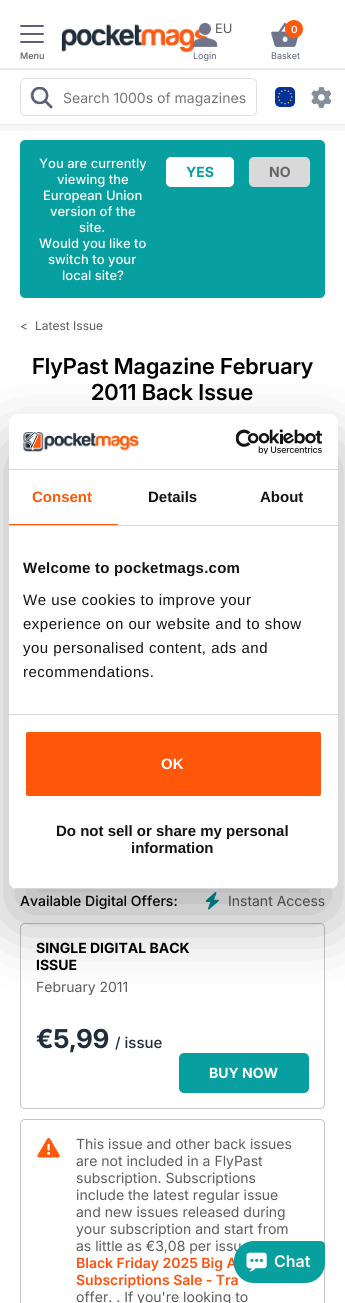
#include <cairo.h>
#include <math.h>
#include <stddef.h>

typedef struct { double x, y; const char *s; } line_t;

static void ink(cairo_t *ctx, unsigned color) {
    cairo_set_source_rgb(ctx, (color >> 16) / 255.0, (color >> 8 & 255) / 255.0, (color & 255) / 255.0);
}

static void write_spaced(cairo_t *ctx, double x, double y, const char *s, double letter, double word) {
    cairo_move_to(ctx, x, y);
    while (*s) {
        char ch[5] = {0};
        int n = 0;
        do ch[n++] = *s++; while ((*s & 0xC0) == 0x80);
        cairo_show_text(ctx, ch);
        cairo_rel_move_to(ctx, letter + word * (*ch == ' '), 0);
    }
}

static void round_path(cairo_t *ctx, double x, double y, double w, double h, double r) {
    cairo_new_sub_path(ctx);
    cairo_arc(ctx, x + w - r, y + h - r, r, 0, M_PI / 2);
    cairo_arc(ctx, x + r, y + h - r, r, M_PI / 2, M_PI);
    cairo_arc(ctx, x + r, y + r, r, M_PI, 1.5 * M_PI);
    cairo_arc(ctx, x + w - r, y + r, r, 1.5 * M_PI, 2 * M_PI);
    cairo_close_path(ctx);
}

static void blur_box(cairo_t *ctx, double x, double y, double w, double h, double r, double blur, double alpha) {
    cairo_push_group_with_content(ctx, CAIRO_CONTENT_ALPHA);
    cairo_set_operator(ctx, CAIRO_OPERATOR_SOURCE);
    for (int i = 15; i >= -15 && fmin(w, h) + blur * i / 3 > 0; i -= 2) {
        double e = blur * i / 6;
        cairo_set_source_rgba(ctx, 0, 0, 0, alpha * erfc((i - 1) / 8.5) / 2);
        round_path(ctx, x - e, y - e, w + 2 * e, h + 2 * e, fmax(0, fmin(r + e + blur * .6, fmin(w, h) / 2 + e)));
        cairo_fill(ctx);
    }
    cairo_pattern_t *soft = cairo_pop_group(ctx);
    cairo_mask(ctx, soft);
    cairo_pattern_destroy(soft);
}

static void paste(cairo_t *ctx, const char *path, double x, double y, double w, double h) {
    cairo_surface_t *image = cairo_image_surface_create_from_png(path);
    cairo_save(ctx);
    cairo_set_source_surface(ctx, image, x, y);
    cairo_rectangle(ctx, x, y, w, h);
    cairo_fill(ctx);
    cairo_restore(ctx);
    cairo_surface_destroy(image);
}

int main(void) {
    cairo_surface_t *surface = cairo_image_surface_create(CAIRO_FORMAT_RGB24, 345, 1303);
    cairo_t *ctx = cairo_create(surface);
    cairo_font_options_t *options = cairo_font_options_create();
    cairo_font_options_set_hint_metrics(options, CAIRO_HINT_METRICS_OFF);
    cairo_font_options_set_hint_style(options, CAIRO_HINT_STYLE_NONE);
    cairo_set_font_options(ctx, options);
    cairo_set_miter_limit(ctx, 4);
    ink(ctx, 0xFFFFFF);
    cairo_paint(ctx);
    ink(ctx, 0x079F9F);
    round_path(ctx, 20, 140, 305, 158, 5);
    cairo_fill(ctx);
    cairo_save(ctx);
    cairo_rectangle(ctx, 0, 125, 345, 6);
    cairo_clip(ctx);
    ink(ctx, 0x000000);
    blur_box(ctx, -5, -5, 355, 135, 0, 5, 0.05);
    cairo_restore(ctx);
    ink(ctx, 0xEAEAEA);
    cairo_rectangle(ctx, 0, 68, 345, 2);
    cairo_fill(ctx);
    paste(ctx, "media/1.png", 61, 24, 148, 29);
    cairo_select_font_face(ctx, "Inter", CAIRO_FONT_SLANT_NORMAL, CAIRO_FONT_WEIGHT_NORMAL);
    cairo_set_font_size(ctx, 13);
    ink(ctx, 0x5C5C5C);
    cairo_move_to(ctx, 215, 33);
    cairo_show_text(ctx, "EU");
    ink(ctx, 0x5C607C);
    round_path(ctx, 20, 25, 24, 2, 1);
    cairo_fill(ctx);
    round_path(ctx, 20, 33, 24, 2, 1);
    cairo_fill(ctx);
    round_path(ctx, 20, 41, 24, 2, 1);
    cairo_fill(ctx);
    cairo_select_font_face(ctx, "Inter Medium", CAIRO_FONT_SLANT_NORMAL, CAIRO_FONT_WEIGHT_NORMAL);
    cairo_set_font_size(ctx, 9);
    ink(ctx, 0x5C5C5C);
    cairo_move_to(ctx, 20, 59);
    cairo_show_text(ctx, "Menu");
    paste(ctx, "media/2.png", 193, 23, 25, 24);
    cairo_select_font_face(ctx, "Inter", CAIRO_FONT_SLANT_NORMAL, CAIRO_FONT_WEIGHT_NORMAL);
    ink(ctx, 0x5C607C);
    cairo_move_to(ctx, 193, 59);
    cairo_show_text(ctx, "Login");
    paste(ctx, "media/3.png", 270, 22, 29, 25);
    ink(ctx, 0xFF580A);
    cairo_arc(ctx, 294, 29, 9, 0, 2 * M_PI);
    cairo_fill(ctx);
    cairo_select_font_face(ctx, "Inter SemiBold", CAIRO_FONT_SLANT_NORMAL, CAIRO_FONT_WEIGHT_NORMAL);
    cairo_set_font_size(ctx, 10);
    ink(ctx, 0xFFFFFF);
    cairo_move_to(ctx, 291, 33);
    cairo_show_text(ctx, "0");
    cairo_select_font_face(ctx, "Inter", CAIRO_FONT_SLANT_NORMAL, CAIRO_FONT_WEIGHT_NORMAL);
    cairo_set_font_size(ctx, 9);
    ink(ctx, 0x5C607C);
    cairo_move_to(ctx, 271, 59);
    cairo_show_text(ctx, "Basket");
    ink(ctx, 0xEAEAEA);
    cairo_rectangle(ctx, 0, 124, 345, 1);
    cairo_fill(ctx);
    round_path(ctx, 20.5, 78.5, 236, 37, 4.5);
    ink(ctx, 0xE1E1E1);
    cairo_set_line_width(ctx, 1);
    cairo_stroke(ctx);
    paste(ctx, "media/4.png", 30, 87, 23, 22);
    cairo_set_font_size(ctx, 14);
    ink(ctx, 0x757575);
    cairo_move_to(ctx, 63, 103);
    cairo_show_text(ctx, "Search 1000s of magazines");
    paste(ctx, "media/5.png", 275, 87, 20, 20);
    paste(ctx, "media/6.png", 311, 87, 24, 21);
    cairo_select_font_face(ctx, "Inter Medium", CAIRO_FONT_SLANT_NORMAL, CAIRO_FONT_WEIGHT_NORMAL);
    cairo_set_font_size(ctx, 13);
    ink(ctx, 0xFFFFFF);
    {
        static const line_t items[] = {
            {39, 168, "You are currently"},
            {57, 184, "viewing the"},
            {43, 200, "European Union"},
            {50, 216, "version of the"},
            {79, 232, "site."},
            {39, 248, "Would you like to"},
            {48, 264, "switch to your"},
            {62, 280, "local site?"},
        };
        for (size_t i = 0; i < sizeof items / sizeof *items; i++) {
            cairo_move_to(ctx, items[i].x, items[i].y);
            cairo_show_text(ctx, items[i].s);
        }
    }
    round_path(ctx, 166, 157, 68, 30, 5);
    cairo_fill(ctx);
    cairo_select_font_face(ctx, "Inter", CAIRO_FONT_SLANT_NORMAL, CAIRO_FONT_WEIGHT_BOLD);
    cairo_set_font_size(ctx, 14);
    ink(ctx, 0x079F9F);
    cairo_move_to(ctx, 186, 177);
    cairo_show_text(ctx, "YES");
    ink(ctx, 0xD9D9D9);
    round_path(ctx, 249, 157, 61, 30, 5);
    cairo_fill(ctx);
    ink(ctx, 0x646464);
    cairo_move_to(ctx, 269, 177);
    cairo_show_text(ctx, "NO");
    cairo_select_font_face(ctx, "Inter", CAIRO_FONT_SLANT_NORMAL, CAIRO_FONT_WEIGHT_NORMAL);
    cairo_set_font_size(ctx, 12);
    ink(ctx, 0x5C5C5C);
    cairo_move_to(ctx, 20, 330);
    cairo_show_text(ctx, "<");
    cairo_move_to(ctx, 35, 330);
    cairo_show_text(ctx, "Latest Issue");
    cairo_select_font_face(ctx, "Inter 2 SemiBold", CAIRO_FONT_SLANT_NORMAL, CAIRO_FONT_WEIGHT_NORMAL);
    cairo_set_font_size(ctx, 22);
    ink(ctx, 0x000000);
    cairo_move_to(ctx, 32, 374);
    cairo_show_text(ctx, "FlyPast Magazine February");
    cairo_move_to(ctx, 91, 400);
    cairo_show_text(ctx, "2011 Back Issue");
    cairo_select_font_face(ctx, "Inter Medium", CAIRO_FONT_SLANT_NORMAL, CAIRO_FONT_WEIGHT_NORMAL);
    cairo_set_font_size(ctx, 14);
    cairo_move_to(ctx, 20, 906);
    cairo_show_text(ctx, "Available Digital Offers:");
    paste(ctx, "media/7.png", 205, 891, 14, 19);
    cairo_select_font_face(ctx, "Inter", CAIRO_FONT_SLANT_NORMAL, CAIRO_FONT_WEIGHT_NORMAL);
    ink(ctx, 0x5C5C5C);
    cairo_move_to(ctx, 228, 906);
    cairo_show_text(ctx, "Instant Access");
    round_path(ctx, 20.5, 923.5, 304, 185, 4.5);
    ink(ctx, 0xC6C6C6);
    cairo_stroke(ctx);
    cairo_select_font_face(ctx, "Inter", CAIRO_FONT_SLANT_NORMAL, CAIRO_FONT_WEIGHT_BOLD);
    ink(ctx, 0x000000);
    cairo_move_to(ctx, 36, 953);
    cairo_show_text(ctx, "SINGLE DIGITAL BACK");
    cairo_move_to(ctx, 36, 970);
    cairo_show_text(ctx, "ISSUE");
    cairo_select_font_face(ctx, "Inter", CAIRO_FONT_SLANT_NORMAL, CAIRO_FONT_WEIGHT_NORMAL);
    ink(ctx, 0x5C5C5C);
    cairo_move_to(ctx, 36, 992);
    cairo_show_text(ctx, "February 2011");
    cairo_select_font_face(ctx, "Inter 2", CAIRO_FONT_SLANT_NORMAL, CAIRO_FONT_WEIGHT_BOLD);
    cairo_set_font_size(ctx, 26);
    ink(ctx, 0x202D3C);
    cairo_move_to(ctx, 36, 1048);
    cairo_show_text(ctx, "€5,99");
    cairo_select_font_face(ctx, "Inter Medium", CAIRO_FONT_SLANT_NORMAL, CAIRO_FONT_WEIGHT_NORMAL);
    cairo_set_font_size(ctx, 15);
    cairo_move_to(ctx, 115, 1048);
    cairo_show_text(ctx, "/ issue");
    ink(ctx, 0x079F9F);
    round_path(ctx, 179, 1053, 130, 40, 5);
    cairo_fill(ctx);
    cairo_select_font_face(ctx, "Inter", CAIRO_FONT_SLANT_NORMAL, CAIRO_FONT_WEIGHT_BOLD);
    cairo_set_font_size(ctx, 14);
    ink(ctx, 0xFFFFFF);
    cairo_move_to(ctx, 209, 1078);
    cairo_show_text(ctx, "BUY NOW");
    round_path(ctx, 20.5, 1119.5, 304, 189, 4.5);
    ink(ctx, 0xC6C6C6);
    cairo_stroke(ctx);
    paste(ctx, "media/8.png", 37, 1137, 23, 21);
    cairo_select_font_face(ctx, "Inter", CAIRO_FONT_SLANT_NORMAL, CAIRO_FONT_WEIGHT_NORMAL);
    ink(ctx, 0x5C5C5C);
    {
        static const line_t items[] = {
            {76, 1149, "This issue and other back issues"},
            {76, 1166, "are not included in a FlyPast"},
            {76, 1183, "subscription. Subscriptions"},
            {76, 1200, "include the latest regular issue"},
            {76, 1217, "and new issues released during"},
            {76, 1234, "your subscription and start from"},
            {76, 1251, "as little as €3,08 per issu"},
        };
        for (size_t i = 0; i < sizeof items / sizeof *items; i++) {
            cairo_move_to(ctx, items[i].x, items[i].y);
            cairo_show_text(ctx, items[i].s);
        }
    }
    cairo_select_font_face(ctx, "Inter SemiBold", CAIRO_FONT_SLANT_NORMAL, CAIRO_FONT_WEIGHT_NORMAL);
    ink(ctx, 0xFD510F);
    cairo_move_to(ctx, 76, 1268);
    cairo_show_text(ctx, "Black Friday 2025 Big A");
    cairo_move_to(ctx, 76, 1285);
    cairo_show_text(ctx, "Subscriptions Sale - Tra");
    cairo_select_font_face(ctx, "Inter", CAIRO_FONT_SLANT_NORMAL, CAIRO_FONT_WEIGHT_NORMAL);
    ink(ctx, 0x5C5C5C);
    cairo_move_to(ctx, 76, 1302);
    cairo_show_text(ctx, "offer. . If you're looking to");
    ink(ctx, 0x07A09E);
    cairo_new_path(ctx);
    cairo_move_to(ctx, 254, 1241);
    cairo_line_to(ctx, 320, 1241);
    cairo_curve_to(ctx, 323, 1241, 325, 1243, 325, 1246);
    cairo_line_to(ctx, 325, 1263);
    cairo_curve_to(ctx, 325, 1274, 316, 1283, 305, 1283);
    cairo_line_to(ctx, 254, 1283);
    cairo_curve_to(ctx, 243, 1283, 234, 1274, 234, 1263);
    cairo_line_to(ctx, 234, 1261);
    cairo_curve_to(ctx, 234, 1250, 243, 1241, 254, 1241);
    cairo_close_path(ctx);
    cairo_fill(ctx);
    paste(ctx, "media/9.png", 246, 1252, 21, 20);
    cairo_select_font_face(ctx, "Inter SemiBold", CAIRO_FONT_SLANT_NORMAL, CAIRO_FONT_WEIGHT_NORMAL);
    cairo_set_font_size(ctx, 16);
    ink(ctx, 0xFFFFFF);
    cairo_move_to(ctx, 274, 1267);
    cairo_show_text(ctx, "Chat");
    ink(ctx, 0x000000);
    blur_box(ctx, 9, 446, 329, 475, 8, 34, 0.3);
    ink(ctx, 0xFFFFFF);
    round_path(ctx, 9, 414, 329, 475, 8);
    cairo_fill(ctx);
    ink(ctx, 0xD6D6D6);
    cairo_rectangle(ctx, 9, 469, 329, 1);
    cairo_fill(ctx);
    paste(ctx, "media/10.png", 23, 432, 116, 20);
    paste(ctx, "media/11.png", 236, 429, 86, 25);
    cairo_rectangle(ctx, 9, 525, 329, 1);
    cairo_fill(ctx);
    ink(ctx, 0xFF5709);
    cairo_rectangle(ctx, 9, 524, 109, 1);
    cairo_fill(ctx);
    cairo_select_font_face(ctx, "Liberation Sans", CAIRO_FONT_SLANT_NORMAL, CAIRO_FONT_WEIGHT_BOLD);
    cairo_set_font_size(ctx, 15);
    cairo_move_to(ctx, 32, 502);
    cairo_show_text(ctx, "Consent");
    ink(ctx, 0x141414);
    cairo_move_to(ctx, 148, 502);
    cairo_show_text(ctx, "Details");
    cairo_move_to(ctx, 260, 502);
    cairo_show_text(ctx, "About");
    ink(ctx, 0xD6D6D6);
    cairo_rectangle(ctx, 9, 714, 329, 1);
    cairo_fill(ctx);
    ink(ctx, 0x141414);
    write_spaced(ctx, 23, 573, "Welcome to pocketmags.com", 0.25, 0);
    cairo_select_font_face(ctx, "Liberation Sans", CAIRO_FONT_SLANT_NORMAL, CAIRO_FONT_WEIGHT_NORMAL);
    {
        static const line_t items[] = {
            {23, 605, "We use cookies to improve your"},
            {23, 629, "experience on our website and to show"},
            {23, 653, "you personalised content, ads and"},
            {23, 677, "recommendations."},
        };
        for (size_t i = 0; i < sizeof items / sizeof *items; i++) {
            write_spaced(ctx, items[i].x, items[i].y, items[i].s, 0.5, 0);
        }
    }
    cairo_save(ctx);
    round_path(ctx, 9, 414, 329, 475, 8);
    cairo_clip(ctx);
    ink(ctx, 0xD6D6D6);
    cairo_rectangle(ctx, 9, 888, 329, 1);
    cairo_fill(ctx);
    cairo_restore(ctx);
    ink(ctx, 0xFF5709);
    round_path(ctx, 25, 731, 297, 66, 3);
    cairo_fill_preserve(ctx);
    ink(ctx, 0xFFFFFF);
    cairo_set_line_width(ctx, 2);
    cairo_stroke(ctx);
    cairo_select_font_face(ctx, "Liberation Sans", CAIRO_FONT_SLANT_NORMAL, CAIRO_FONT_WEIGHT_BOLD);
    cairo_move_to(ctx, 161, 769);
    cairo_show_text(ctx, "OK");
    ink(ctx, 0x141414);
    cairo_move_to(ctx, 56, 836);
    cairo_show_text(ctx, "Do not sell or share my personal");
    cairo_move_to(ctx, 131, 853);
    cairo_show_text(ctx, "information");
    cairo_surface_write_to_png(surface, "image.png");
    cairo_font_options_destroy(options);
    cairo_destroy(ctx);
    cairo_surface_destroy(surface);
    return 0;
}
